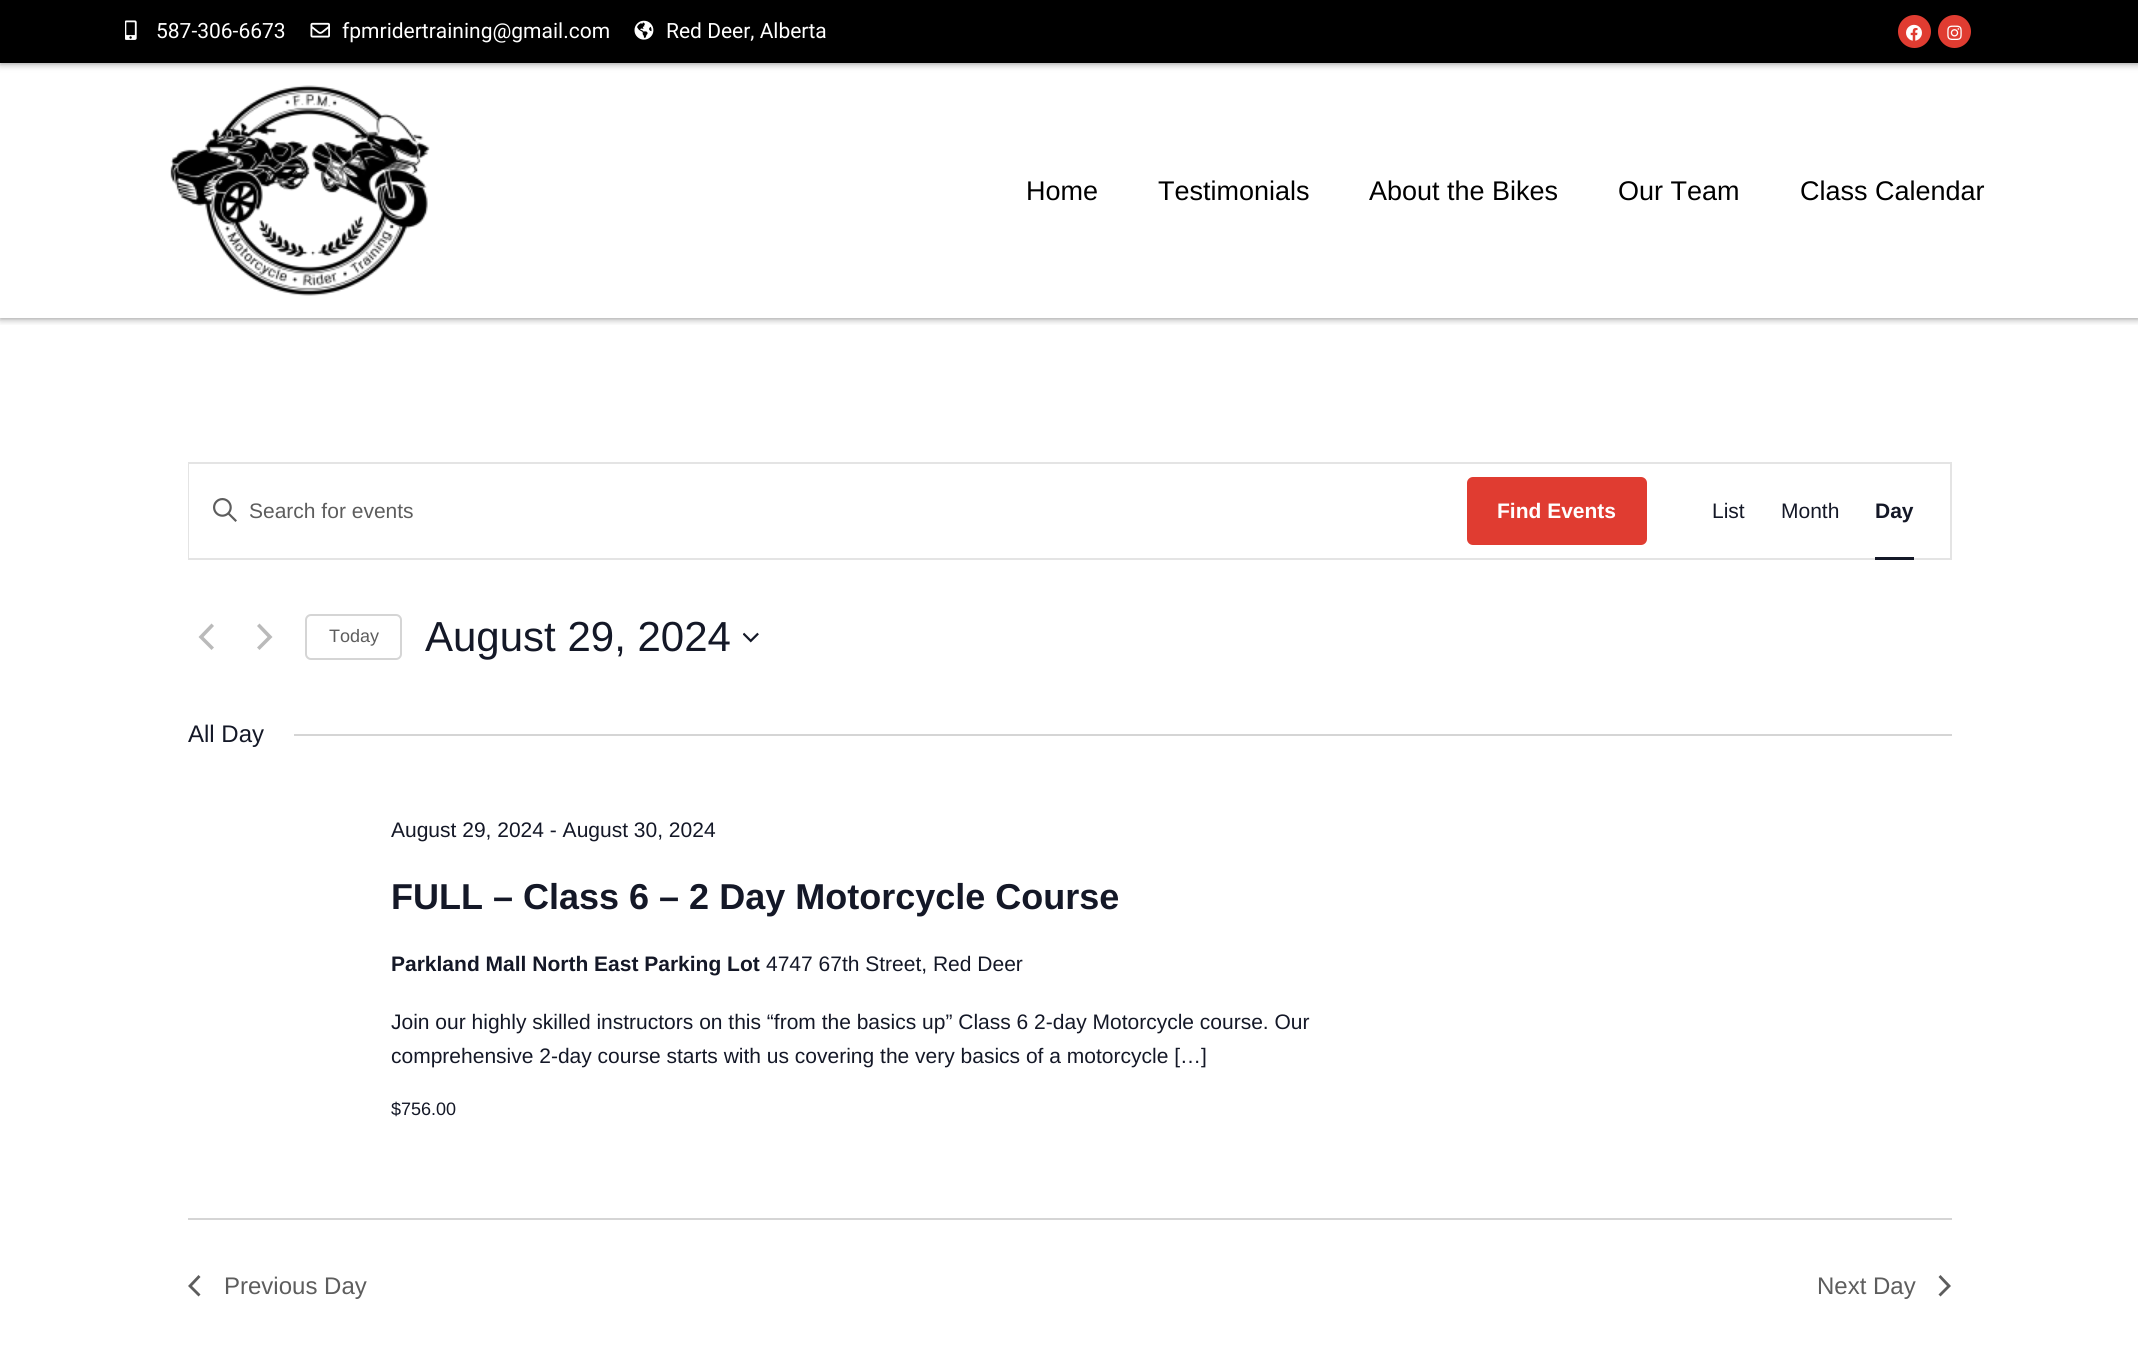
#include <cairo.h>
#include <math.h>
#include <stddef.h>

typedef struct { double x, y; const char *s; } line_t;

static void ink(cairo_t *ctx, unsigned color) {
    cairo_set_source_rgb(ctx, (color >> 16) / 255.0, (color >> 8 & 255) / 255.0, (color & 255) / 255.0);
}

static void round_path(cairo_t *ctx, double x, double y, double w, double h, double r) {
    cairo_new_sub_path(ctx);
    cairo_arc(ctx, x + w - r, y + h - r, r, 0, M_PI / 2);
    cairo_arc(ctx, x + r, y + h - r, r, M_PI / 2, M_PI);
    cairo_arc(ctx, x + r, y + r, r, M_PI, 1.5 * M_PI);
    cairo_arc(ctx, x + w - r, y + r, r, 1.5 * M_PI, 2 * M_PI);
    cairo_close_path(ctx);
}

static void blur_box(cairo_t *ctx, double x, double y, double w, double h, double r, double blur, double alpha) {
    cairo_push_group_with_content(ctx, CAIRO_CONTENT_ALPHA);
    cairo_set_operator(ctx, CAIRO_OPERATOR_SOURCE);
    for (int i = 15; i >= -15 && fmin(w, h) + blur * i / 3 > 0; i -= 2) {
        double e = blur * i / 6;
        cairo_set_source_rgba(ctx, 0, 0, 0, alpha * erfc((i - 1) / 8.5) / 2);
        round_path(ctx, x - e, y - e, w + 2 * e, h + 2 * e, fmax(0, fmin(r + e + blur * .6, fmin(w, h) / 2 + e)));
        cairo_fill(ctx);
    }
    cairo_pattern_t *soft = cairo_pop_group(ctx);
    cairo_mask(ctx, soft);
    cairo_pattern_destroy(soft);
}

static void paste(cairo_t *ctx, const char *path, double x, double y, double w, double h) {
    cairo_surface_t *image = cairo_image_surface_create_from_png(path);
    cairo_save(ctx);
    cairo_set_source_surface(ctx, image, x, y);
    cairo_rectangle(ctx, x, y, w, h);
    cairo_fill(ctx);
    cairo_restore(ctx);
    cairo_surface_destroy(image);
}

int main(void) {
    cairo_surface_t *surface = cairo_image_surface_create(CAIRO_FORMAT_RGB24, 2138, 1366);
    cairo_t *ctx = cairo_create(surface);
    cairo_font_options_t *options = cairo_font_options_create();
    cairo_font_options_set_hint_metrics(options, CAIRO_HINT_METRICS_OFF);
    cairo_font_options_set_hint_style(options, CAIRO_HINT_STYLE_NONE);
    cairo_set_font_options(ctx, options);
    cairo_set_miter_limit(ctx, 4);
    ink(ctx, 0xFFFFFF);
    cairo_paint(ctx);
    ink(ctx, 0x000000);
    blur_box(ctx, 0, 0, 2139, 63, 0, 4, 0.5);
    cairo_save(ctx);
    cairo_rectangle(ctx, 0, 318, 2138, 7);
    cairo_clip(ctx);
    blur_box(ctx, 0, 63, 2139, 255, 0, 4, 0.5);
    cairo_restore(ctx);
    ink(ctx, 0x000000);
    cairo_rectangle(ctx, 0, 0, 2138, 63);
    cairo_fill(ctx);
    paste(ctx, "media/1.png", 125, 20, 12, 20);
    cairo_select_font_face(ctx, "Roboto", CAIRO_FONT_SLANT_NORMAL, CAIRO_FONT_WEIGHT_NORMAL);
    cairo_set_font_size(ctx, 21);
    ink(ctx, 0xFFFFFF);
    cairo_move_to(ctx, 156, 38);
    cairo_show_text(ctx, "587-306-6673");
    paste(ctx, "media/2.png", 310, 22, 20, 16);
    cairo_move_to(ctx, 342, 38);
    cairo_show_text(ctx, "fpmridertraining@gmail.com");
    paste(ctx, "media/3.png", 634, 20, 20, 20);
    cairo_move_to(ctx, 666, 38);
    cairo_show_text(ctx, "Red Deer, Alberta");
    ink(ctx, 0xE03C31);
    cairo_new_path(ctx);
    cairo_arc(ctx, 1914.5, 31.5, 16.5, 0, 2 * M_PI);
    cairo_fill(ctx);
    paste(ctx, "media/4.png", 1906, 24, 16, 17);
    cairo_arc(ctx, 1954.5, 31.5, 16.5, 0, 2 * M_PI);
    cairo_fill(ctx);
    paste(ctx, "media/5.png", 1947, 25, 15, 15);
    paste(ctx, "media/6.png", 170, 85, 260, 211);
    cairo_select_font_face(ctx, "Liberation Sans", CAIRO_FONT_SLANT_NORMAL, CAIRO_FONT_WEIGHT_NORMAL);
    cairo_set_font_size(ctx, 27);
    ink(ctx, 0x000000);
    {
        static const line_t items[] = {
            {1026, 200, "Home"},
            {1158, 200, "Testimonials"},
            {1369, 200, "About the Bikes"},
            {1618, 200, "Our Team"},
            {1800, 200, "Class Calendar"},
        };
        for (size_t i = 0; i < sizeof items / sizeof *items; i++) {
            cairo_move_to(ctx, items[i].x, items[i].y);
            cairo_show_text(ctx, items[i].s);
        }
    }
    cairo_rectangle(ctx, 189, 463, 1762, 96);
    ink(ctx, 0xE4E4E4);
    cairo_stroke(ctx);
    ink(ctx, 0xFFFFFF);
    cairo_rectangle(ctx, 189, 464, 1, 94);
    cairo_fill(ctx);
    paste(ctx, "media/7.png", 213, 498, 24, 24);
    cairo_set_font_size(ctx, 21);
    ink(ctx, 0x5D5D5D);
    cairo_move_to(ctx, 249, 518);
    cairo_show_text(ctx, "Search for events");
    ink(ctx, 0xE03C31);
    round_path(ctx, 1467, 477, 180, 68, 6);
    cairo_fill(ctx);
    cairo_select_font_face(ctx, "Liberation Sans", CAIRO_FONT_SLANT_NORMAL, CAIRO_FONT_WEIGHT_BOLD);
    ink(ctx, 0xFFFFFF);
    cairo_move_to(ctx, 1497, 518);
    cairo_show_text(ctx, "Find Events");
    cairo_select_font_face(ctx, "Liberation Sans", CAIRO_FONT_SLANT_NORMAL, CAIRO_FONT_WEIGHT_NORMAL);
    ink(ctx, 0x141827);
    cairo_move_to(ctx, 1712, 518);
    cairo_show_text(ctx, "List");
    cairo_move_to(ctx, 1781, 518);
    cairo_show_text(ctx, "Month");
    cairo_select_font_face(ctx, "Liberation Sans", CAIRO_FONT_SLANT_NORMAL, CAIRO_FONT_WEIGHT_BOLD);
    cairo_move_to(ctx, 1875, 518);
    cairo_show_text(ctx, "Day");
    cairo_rectangle(ctx, 1875, 557, 39, 3);
    cairo_fill(ctx);
    ink(ctx, 0xBABABA);
    cairo_new_path(ctx);
    cairo_move_to(ctx, 214, 647.5);
    cairo_line_to(ctx, 211.5, 650);
    cairo_line_to(ctx, 198.5, 637);
    cairo_line_to(ctx, 211.5, 623.5);
    cairo_line_to(ctx, 214, 626);
    cairo_line_to(ctx, 203.5, 637);
    cairo_close_path(ctx);
    cairo_fill(ctx);
    cairo_new_path(ctx);
    cairo_move_to(ctx, 257, 626);
    cairo_line_to(ctx, 259.5, 623.5);
    cairo_line_to(ctx, 272.5, 637);
    cairo_line_to(ctx, 259.5, 650);
    cairo_line_to(ctx, 257, 647.5);
    cairo_line_to(ctx, 267.5, 637);
    cairo_close_path(ctx);
    cairo_fill(ctx);
    round_path(ctx, 306, 615, 95, 44, 5);
    ink(ctx, 0xD5D5D5);
    cairo_stroke(ctx);
    cairo_select_font_face(ctx, "Liberation Sans", CAIRO_FONT_SLANT_NORMAL, CAIRO_FONT_WEIGHT_NORMAL);
    cairo_set_font_size(ctx, 18);
    ink(ctx, 0x5D5D5D);
    cairo_move_to(ctx, 329, 642);
    cairo_show_text(ctx, "Today");
    cairo_set_font_size(ctx, 42);
    ink(ctx, 0x141827);
    cairo_move_to(ctx, 425, 651);
    cairo_show_text(ctx, "August 29, 2024");
    paste(ctx, "media/8.png", 743, 632, 16, 11);
    cairo_set_font_size(ctx, 24);
    cairo_move_to(ctx, 188, 742);
    cairo_show_text(ctx, "All Day");
    ink(ctx, 0xD5D5D5);
    cairo_rectangle(ctx, 294, 734, 1658, 2);
    cairo_fill(ctx);
    cairo_set_font_size(ctx, 21);
    ink(ctx, 0x141827);
    cairo_move_to(ctx, 391, 837);
    cairo_show_text(ctx, "August 29, 2024 - August 30, 2024");
    cairo_select_font_face(ctx, "Liberation Sans", CAIRO_FONT_SLANT_NORMAL, CAIRO_FONT_WEIGHT_BOLD);
    cairo_set_font_size(ctx, 36);
    cairo_move_to(ctx, 391, 909);
    cairo_show_text(ctx, "FULL – Class 6 – 2 Day Motorcycle Course");
    cairo_set_font_size(ctx, 21);
    cairo_move_to(ctx, 391, 971);
    cairo_show_text(ctx, "Parkland Mall North East Parking Lot");
    cairo_select_font_face(ctx, "Liberation Sans", CAIRO_FONT_SLANT_NORMAL, CAIRO_FONT_WEIGHT_NORMAL);
    {
        static const line_t items[] = {
            {766, 971, "4747 67th Street, Red Deer"},
            {391, 1029, "Join our highly skilled instructors on this “from the basics up” Class 6 2-day Motorcycle course. Our"},
            {391, 1063, "comprehensive 2-day course starts with us covering the very basics of a motorcycle […]"},
        };
        for (size_t i = 0; i < sizeof items / sizeof *items; i++) {
            cairo_move_to(ctx, items[i].x, items[i].y);
            cairo_show_text(ctx, items[i].s);
        }
    }
    cairo_set_font_size(ctx, 18);
    cairo_move_to(ctx, 391, 1115);
    cairo_show_text(ctx, "$756.00");
    ink(ctx, 0xD5D5D5);
    cairo_rectangle(ctx, 188, 1218, 1764, 2);
    cairo_fill(ctx);
    ink(ctx, 0x5D5D5D);
    cairo_new_path(ctx);
    cairo_move_to(ctx, 200.5, 1294.5);
    cairo_line_to(ctx, 198.5, 1296.5);
    cairo_line_to(ctx, 188, 1286);
    cairo_line_to(ctx, 198.5, 1275);
    cairo_line_to(ctx, 200.5, 1277);
    cairo_line_to(ctx, 192, 1286);
    cairo_close_path(ctx);
    cairo_fill(ctx);
    cairo_set_font_size(ctx, 24);
    cairo_move_to(ctx, 224, 1294);
    cairo_show_text(ctx, "Previous Day");
    cairo_move_to(ctx, 1817, 1294);
    cairo_show_text(ctx, "Next Day");
    cairo_new_path(ctx);
    cairo_move_to(ctx, 1938.5, 1277);
    cairo_line_to(ctx, 1940.5, 1275);
    cairo_line_to(ctx, 1951, 1286);
    cairo_line_to(ctx, 1940.5, 1296.5);
    cairo_line_to(ctx, 1938.5, 1294.5);
    cairo_line_to(ctx, 1947, 1286);
    cairo_close_path(ctx);
    cairo_fill(ctx);
    cairo_surface_write_to_png(surface, "image.png");
    cairo_font_options_destroy(options);
    cairo_destroy(ctx);
    cairo_surface_destroy(surface);
    return 0;
}
